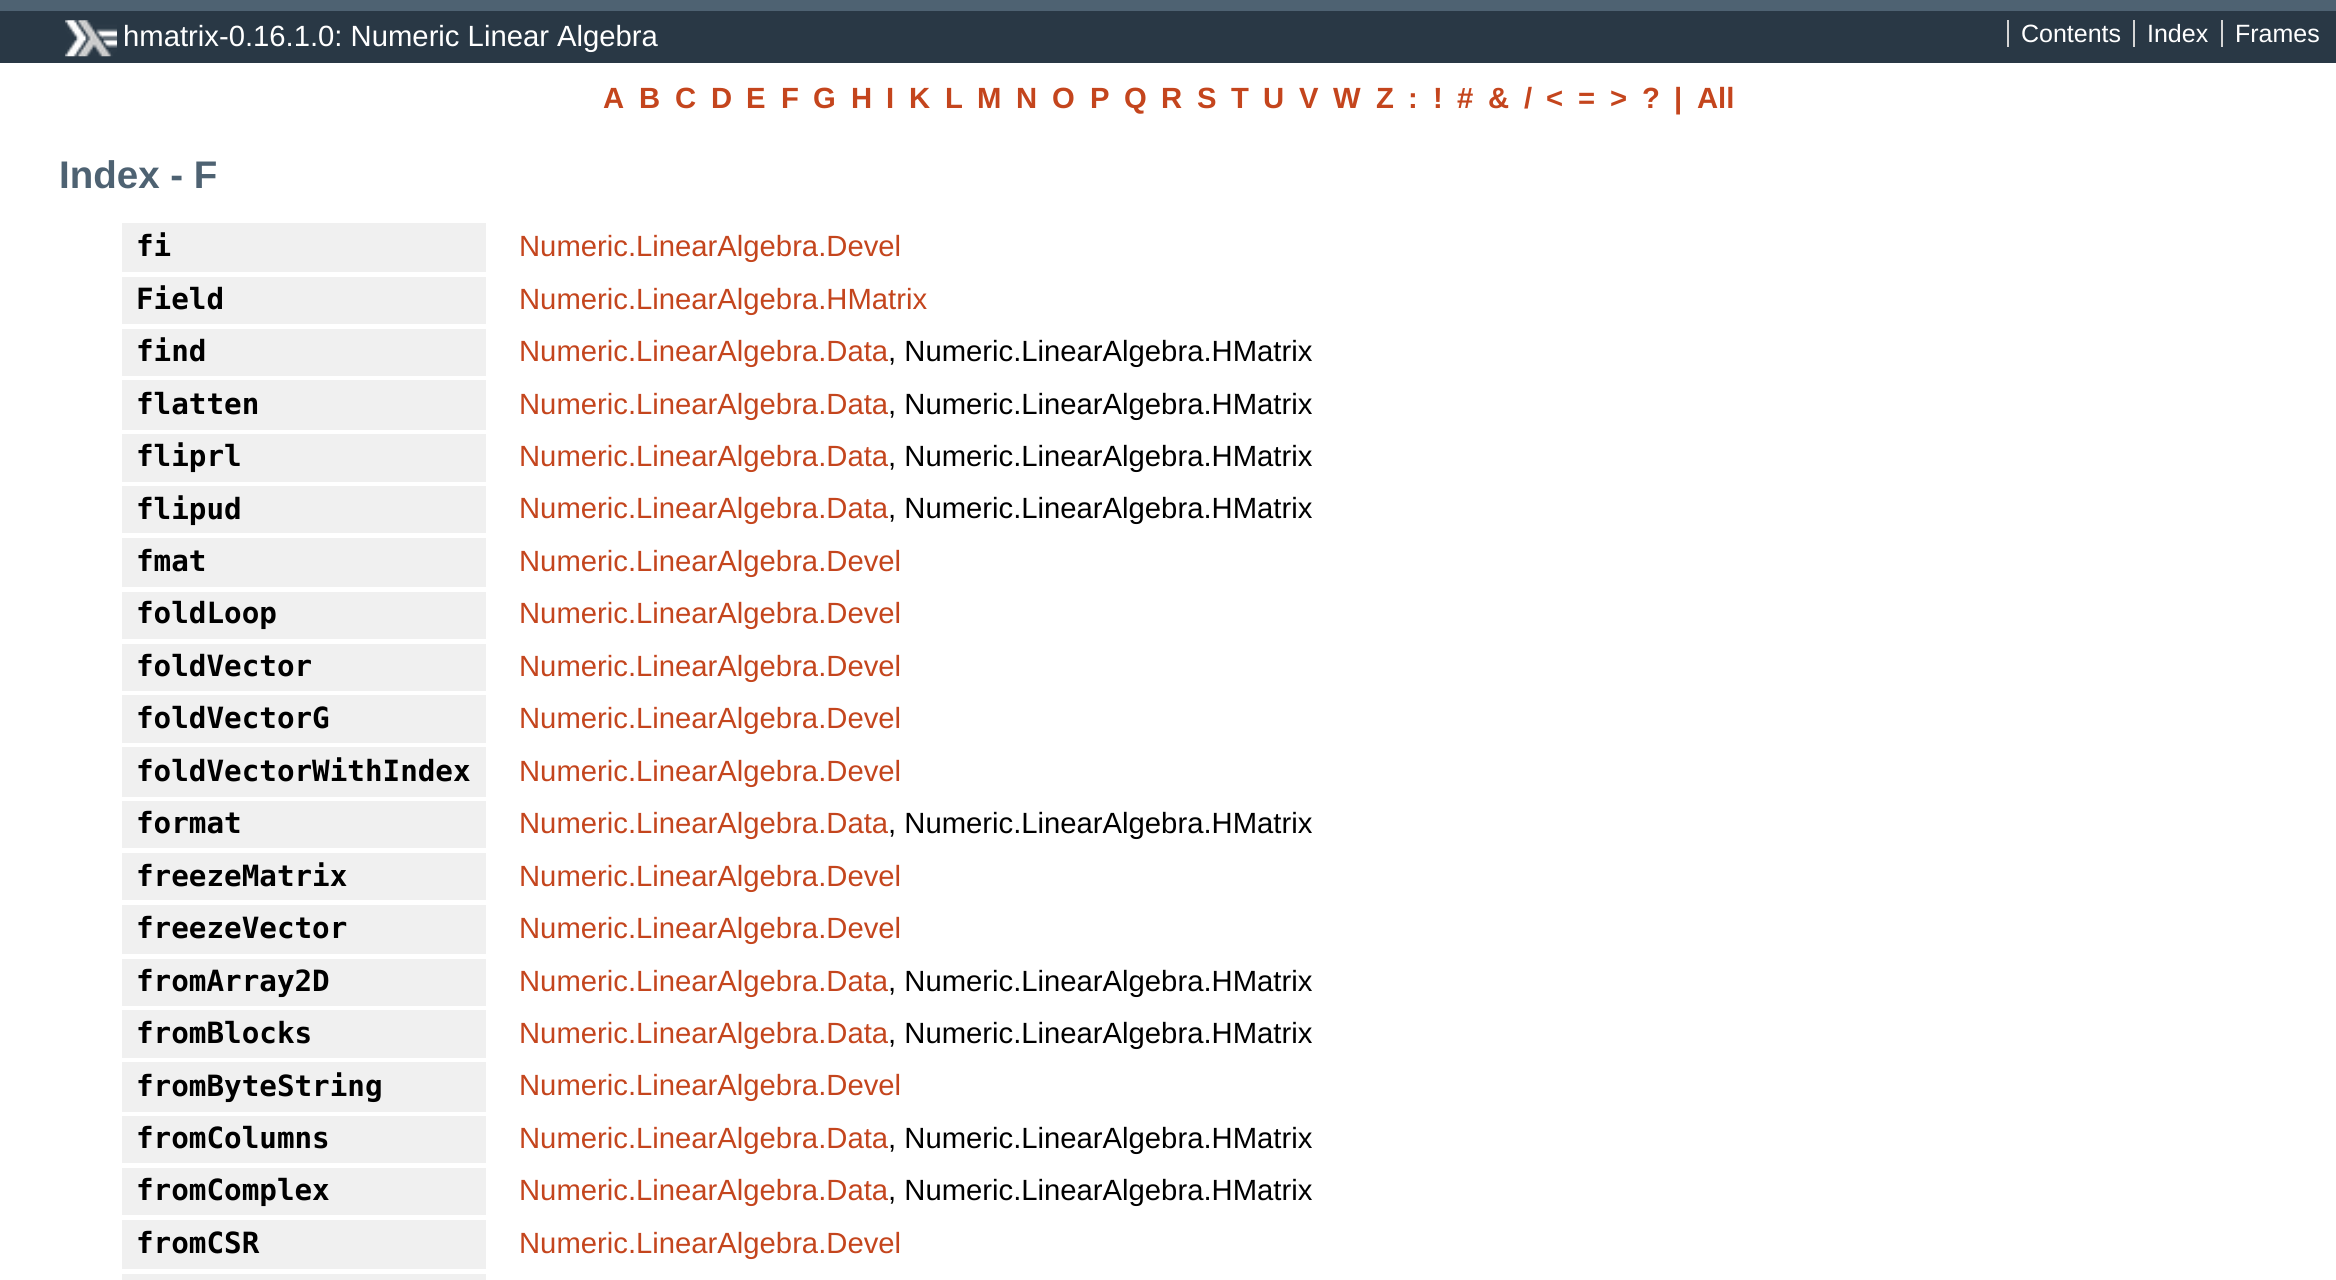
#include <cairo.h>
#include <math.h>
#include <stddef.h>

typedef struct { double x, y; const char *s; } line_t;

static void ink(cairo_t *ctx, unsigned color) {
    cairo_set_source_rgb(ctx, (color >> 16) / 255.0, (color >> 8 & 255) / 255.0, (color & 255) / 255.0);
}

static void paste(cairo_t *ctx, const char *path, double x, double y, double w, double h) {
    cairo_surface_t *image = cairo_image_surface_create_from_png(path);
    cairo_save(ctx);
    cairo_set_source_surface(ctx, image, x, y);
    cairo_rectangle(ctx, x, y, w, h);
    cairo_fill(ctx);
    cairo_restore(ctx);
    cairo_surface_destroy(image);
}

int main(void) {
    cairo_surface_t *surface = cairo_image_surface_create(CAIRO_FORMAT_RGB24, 2336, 1280);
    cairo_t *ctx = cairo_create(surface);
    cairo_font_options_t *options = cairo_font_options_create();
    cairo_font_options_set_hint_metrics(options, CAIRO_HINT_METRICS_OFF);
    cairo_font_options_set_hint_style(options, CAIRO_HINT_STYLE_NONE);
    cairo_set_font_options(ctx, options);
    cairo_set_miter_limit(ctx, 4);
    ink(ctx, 0xFFFFFF);
    cairo_paint(ctx);
    ink(ctx, 0x293845);
    cairo_rectangle(ctx, 0, 11, 2336, 52);
    cairo_fill(ctx);
    ink(ctx, 0x4E6272);
    cairo_rectangle(ctx, 0, 0, 2336, 11);
    cairo_fill(ctx);
    paste(ctx, "media/1.png", 65, 20, 52, 37);
    cairo_select_font_face(ctx, "Liberation Sans", CAIRO_FONT_SLANT_NORMAL, CAIRO_FONT_WEIGHT_NORMAL);
    cairo_set_font_size(ctx, 29.25);
    ink(ctx, 0xFFFFFF);
    cairo_move_to(ctx, 123, 46);
    cairo_show_text(ctx, "hmatrix-0.16.1.0: Numeric Linear Algebra");
    cairo_set_font_size(ctx, 25);
    cairo_move_to(ctx, 2021, 42);
    cairo_show_text(ctx, "Contents");
    ink(ctx, 0xD5D5D5);
    cairo_rectangle(ctx, 2007, 20, 2, 27);
    cairo_fill(ctx);
    ink(ctx, 0xFFFFFF);
    cairo_move_to(ctx, 2147, 42);
    cairo_show_text(ctx, "Index");
    ink(ctx, 0xD5D5D5);
    cairo_rectangle(ctx, 2133, 20, 2, 27);
    cairo_fill(ctx);
    ink(ctx, 0xFFFFFF);
    cairo_move_to(ctx, 2235, 42);
    cairo_show_text(ctx, "Frames");
    ink(ctx, 0xD5D5D5);
    cairo_rectangle(ctx, 2221, 20, 2, 27);
    cairo_fill(ctx);
    cairo_select_font_face(ctx, "Liberation Sans", CAIRO_FONT_SLANT_NORMAL, CAIRO_FONT_WEIGHT_BOLD);
    cairo_set_font_size(ctx, 29.25);
    ink(ctx, 0xC4451D);
    {
        static const line_t items[] = {
            {603, 108, "A"},
            {639, 108, "B"},
            {675, 108, "C"},
            {711, 108, "D"},
            {746, 108, "E"},
            {781, 108, "F"},
            {813, 108, "G"},
            {851, 108, "H"},
            {886, 108, "I"},
            {909, 108, "K"},
            {945, 108, "L"},
            {977, 108, "M"},
            {1016, 108, "N"},
            {1052, 108, "O"},
            {1090, 108, "P"},
            {1124, 108, "Q"},
            {1161, 108, "R"},
            {1197, 108, "S"},
            {1231, 108, "T"},
            {1263, 108, "U"},
            {1299, 108, "V"},
            {1333, 108, "W"},
            {1376, 108, "Z"},
            {1408, 108, ":"},
            {1433, 108, "!"},
            {1457, 108, "#"},
            {1488, 108, "&"},
            {1524, 108, "/"},
            {1546, 108, "<"},
            {1578, 108, "="},
            {1610, 108, ">"},
            {1642, 108, "?"},
            {1674, 108, "|"},
            {1697, 108, "All"},
        };
        for (size_t i = 0; i < sizeof items / sizeof *items; i++) {
            cairo_move_to(ctx, items[i].x, items[i].y);
            cairo_show_text(ctx, items[i].s);
        }
    }
    cairo_set_font_size(ctx, 38.5);
    ink(ctx, 0x4E6272);
    cairo_move_to(ctx, 59, 188);
    cairo_show_text(ctx, "Index - F");
    ink(ctx, 0xF0F0F0);
    cairo_rectangle(ctx, 122, 223, 364, 49);
    cairo_fill(ctx);
    cairo_select_font_face(ctx, "DejaVu Sans Mono", CAIRO_FONT_SLANT_NORMAL, CAIRO_FONT_WEIGHT_BOLD);
    cairo_set_font_size(ctx, 29.25);
    ink(ctx, 0x000000);
    cairo_move_to(ctx, 136, 256);
    cairo_show_text(ctx, "fi");
    cairo_select_font_face(ctx, "Liberation Sans", CAIRO_FONT_SLANT_NORMAL, CAIRO_FONT_WEIGHT_NORMAL);
    ink(ctx, 0xC4451D);
    cairo_move_to(ctx, 519, 256);
    cairo_show_text(ctx, "Numeric.LinearAlgebra.Devel");
    ink(ctx, 0xF0F0F0);
    cairo_rectangle(ctx, 122, 277, 364, 47);
    cairo_fill(ctx);
    cairo_select_font_face(ctx, "DejaVu Sans Mono", CAIRO_FONT_SLANT_NORMAL, CAIRO_FONT_WEIGHT_BOLD);
    ink(ctx, 0x000000);
    cairo_move_to(ctx, 136, 309);
    cairo_show_text(ctx, "Field");
    cairo_select_font_face(ctx, "Liberation Sans", CAIRO_FONT_SLANT_NORMAL, CAIRO_FONT_WEIGHT_NORMAL);
    ink(ctx, 0xC4451D);
    cairo_move_to(ctx, 519, 309);
    cairo_show_text(ctx, "Numeric.LinearAlgebra.HMatrix");
    ink(ctx, 0xF0F0F0);
    cairo_rectangle(ctx, 122, 329, 364, 47);
    cairo_fill(ctx);
    cairo_select_font_face(ctx, "DejaVu Sans Mono", CAIRO_FONT_SLANT_NORMAL, CAIRO_FONT_WEIGHT_BOLD);
    ink(ctx, 0x000000);
    cairo_move_to(ctx, 136, 361);
    cairo_show_text(ctx, "find");
    cairo_select_font_face(ctx, "Liberation Sans", CAIRO_FONT_SLANT_NORMAL, CAIRO_FONT_WEIGHT_NORMAL);
    ink(ctx, 0xC4451D);
    cairo_move_to(ctx, 519, 361);
    cairo_show_text(ctx, "Numeric.LinearAlgebra.Data");
    ink(ctx, 0x000000);
    cairo_move_to(ctx, 888, 361);
    cairo_show_text(ctx, ", Numeric.LinearAlgebra.HMatrix");
    ink(ctx, 0xF0F0F0);
    cairo_rectangle(ctx, 122, 380, 364, 50);
    cairo_fill(ctx);
    cairo_select_font_face(ctx, "DejaVu Sans Mono", CAIRO_FONT_SLANT_NORMAL, CAIRO_FONT_WEIGHT_BOLD);
    ink(ctx, 0x000000);
    cairo_move_to(ctx, 136, 414);
    cairo_show_text(ctx, "flatten");
    cairo_select_font_face(ctx, "Liberation Sans", CAIRO_FONT_SLANT_NORMAL, CAIRO_FONT_WEIGHT_NORMAL);
    ink(ctx, 0xC4451D);
    cairo_move_to(ctx, 519, 414);
    cairo_show_text(ctx, "Numeric.LinearAlgebra.Data");
    ink(ctx, 0x000000);
    cairo_move_to(ctx, 888, 414);
    cairo_show_text(ctx, ", Numeric.LinearAlgebra.HMatrix");
    ink(ctx, 0xF0F0F0);
    cairo_rectangle(ctx, 122, 434, 364, 48);
    cairo_fill(ctx);
    cairo_select_font_face(ctx, "DejaVu Sans Mono", CAIRO_FONT_SLANT_NORMAL, CAIRO_FONT_WEIGHT_BOLD);
    ink(ctx, 0x000000);
    cairo_move_to(ctx, 136, 466);
    cairo_show_text(ctx, "fliprl");
    cairo_select_font_face(ctx, "Liberation Sans", CAIRO_FONT_SLANT_NORMAL, CAIRO_FONT_WEIGHT_NORMAL);
    ink(ctx, 0xC4451D);
    cairo_move_to(ctx, 519, 466);
    cairo_show_text(ctx, "Numeric.LinearAlgebra.Data");
    ink(ctx, 0x000000);
    cairo_move_to(ctx, 888, 466);
    cairo_show_text(ctx, ", Numeric.LinearAlgebra.HMatrix");
    ink(ctx, 0xF0F0F0);
    cairo_rectangle(ctx, 122, 486, 364, 47);
    cairo_fill(ctx);
    cairo_select_font_face(ctx, "DejaVu Sans Mono", CAIRO_FONT_SLANT_NORMAL, CAIRO_FONT_WEIGHT_BOLD);
    ink(ctx, 0x000000);
    cairo_move_to(ctx, 136, 519);
    cairo_show_text(ctx, "flipud");
    cairo_select_font_face(ctx, "Liberation Sans", CAIRO_FONT_SLANT_NORMAL, CAIRO_FONT_WEIGHT_NORMAL);
    ink(ctx, 0xC4451D);
    cairo_move_to(ctx, 519, 518);
    cairo_show_text(ctx, "Numeric.LinearAlgebra.Data");
    ink(ctx, 0x000000);
    cairo_move_to(ctx, 888, 518);
    cairo_show_text(ctx, ", Numeric.LinearAlgebra.HMatrix");
    ink(ctx, 0xF0F0F0);
    cairo_rectangle(ctx, 122, 538, 364, 49);
    cairo_fill(ctx);
    cairo_select_font_face(ctx, "DejaVu Sans Mono", CAIRO_FONT_SLANT_NORMAL, CAIRO_FONT_WEIGHT_BOLD);
    ink(ctx, 0x000000);
    cairo_move_to(ctx, 136, 571);
    cairo_show_text(ctx, "fmat");
    cairo_select_font_face(ctx, "Liberation Sans", CAIRO_FONT_SLANT_NORMAL, CAIRO_FONT_WEIGHT_NORMAL);
    ink(ctx, 0xC4451D);
    cairo_move_to(ctx, 519, 571);
    cairo_show_text(ctx, "Numeric.LinearAlgebra.Devel");
    ink(ctx, 0xF0F0F0);
    cairo_rectangle(ctx, 122, 592, 364, 47);
    cairo_fill(ctx);
    cairo_select_font_face(ctx, "DejaVu Sans Mono", CAIRO_FONT_SLANT_NORMAL, CAIRO_FONT_WEIGHT_BOLD);
    ink(ctx, 0x000000);
    cairo_move_to(ctx, 136, 623);
    cairo_show_text(ctx, "foldLoop");
    cairo_select_font_face(ctx, "Liberation Sans", CAIRO_FONT_SLANT_NORMAL, CAIRO_FONT_WEIGHT_NORMAL);
    ink(ctx, 0xC4451D);
    cairo_move_to(ctx, 519, 623);
    cairo_show_text(ctx, "Numeric.LinearAlgebra.Devel");
    ink(ctx, 0xF0F0F0);
    cairo_rectangle(ctx, 122, 644, 364, 47);
    cairo_fill(ctx);
    cairo_select_font_face(ctx, "DejaVu Sans Mono", CAIRO_FONT_SLANT_NORMAL, CAIRO_FONT_WEIGHT_BOLD);
    ink(ctx, 0x000000);
    cairo_move_to(ctx, 136, 676);
    cairo_show_text(ctx, "foldVector");
    cairo_select_font_face(ctx, "Liberation Sans", CAIRO_FONT_SLANT_NORMAL, CAIRO_FONT_WEIGHT_NORMAL);
    ink(ctx, 0xC4451D);
    cairo_move_to(ctx, 519, 676);
    cairo_show_text(ctx, "Numeric.LinearAlgebra.Devel");
    ink(ctx, 0xF0F0F0);
    cairo_rectangle(ctx, 122, 695, 364, 48);
    cairo_fill(ctx);
    cairo_select_font_face(ctx, "DejaVu Sans Mono", CAIRO_FONT_SLANT_NORMAL, CAIRO_FONT_WEIGHT_BOLD);
    ink(ctx, 0x000000);
    cairo_move_to(ctx, 136, 728);
    cairo_show_text(ctx, "foldVectorG");
    cairo_select_font_face(ctx, "Liberation Sans", CAIRO_FONT_SLANT_NORMAL, CAIRO_FONT_WEIGHT_NORMAL);
    ink(ctx, 0xC4451D);
    cairo_move_to(ctx, 519, 728);
    cairo_show_text(ctx, "Numeric.LinearAlgebra.Devel");
    ink(ctx, 0xF0F0F0);
    cairo_rectangle(ctx, 122, 747, 364, 50);
    cairo_fill(ctx);
    cairo_select_font_face(ctx, "DejaVu Sans Mono", CAIRO_FONT_SLANT_NORMAL, CAIRO_FONT_WEIGHT_BOLD);
    ink(ctx, 0x000000);
    cairo_move_to(ctx, 136, 781);
    cairo_show_text(ctx, "foldVectorWithIndex");
    cairo_select_font_face(ctx, "Liberation Sans", CAIRO_FONT_SLANT_NORMAL, CAIRO_FONT_WEIGHT_NORMAL);
    ink(ctx, 0xC4451D);
    cairo_move_to(ctx, 519, 781);
    cairo_show_text(ctx, "Numeric.LinearAlgebra.Devel");
    ink(ctx, 0xF0F0F0);
    cairo_rectangle(ctx, 122, 801, 364, 47);
    cairo_fill(ctx);
    cairo_select_font_face(ctx, "DejaVu Sans Mono", CAIRO_FONT_SLANT_NORMAL, CAIRO_FONT_WEIGHT_BOLD);
    ink(ctx, 0x000000);
    cairo_move_to(ctx, 136, 833);
    cairo_show_text(ctx, "format");
    cairo_select_font_face(ctx, "Liberation Sans", CAIRO_FONT_SLANT_NORMAL, CAIRO_FONT_WEIGHT_NORMAL);
    ink(ctx, 0xC4451D);
    cairo_move_to(ctx, 519, 833);
    cairo_show_text(ctx, "Numeric.LinearAlgebra.Data");
    ink(ctx, 0x000000);
    cairo_move_to(ctx, 888, 833);
    cairo_show_text(ctx, ", Numeric.LinearAlgebra.HMatrix");
    ink(ctx, 0xF0F0F0);
    cairo_rectangle(ctx, 122, 853, 364, 47);
    cairo_fill(ctx);
    cairo_select_font_face(ctx, "DejaVu Sans Mono", CAIRO_FONT_SLANT_NORMAL, CAIRO_FONT_WEIGHT_BOLD);
    ink(ctx, 0x000000);
    cairo_move_to(ctx, 136, 886);
    cairo_show_text(ctx, "freezeMatrix");
    cairo_select_font_face(ctx, "Liberation Sans", CAIRO_FONT_SLANT_NORMAL, CAIRO_FONT_WEIGHT_NORMAL);
    ink(ctx, 0xC4451D);
    cairo_move_to(ctx, 519, 886);
    cairo_show_text(ctx, "Numeric.LinearAlgebra.Devel");
    ink(ctx, 0xF0F0F0);
    cairo_rectangle(ctx, 122, 905, 364, 49);
    cairo_fill(ctx);
    cairo_select_font_face(ctx, "DejaVu Sans Mono", CAIRO_FONT_SLANT_NORMAL, CAIRO_FONT_WEIGHT_BOLD);
    ink(ctx, 0x000000);
    cairo_move_to(ctx, 136, 938);
    cairo_show_text(ctx, "freezeVector");
    cairo_select_font_face(ctx, "Liberation Sans", CAIRO_FONT_SLANT_NORMAL, CAIRO_FONT_WEIGHT_NORMAL);
    ink(ctx, 0xC4451D);
    cairo_move_to(ctx, 519, 938);
    cairo_show_text(ctx, "Numeric.LinearAlgebra.Devel");
    ink(ctx, 0xF0F0F0);
    cairo_rectangle(ctx, 122, 959, 364, 47);
    cairo_fill(ctx);
    cairo_select_font_face(ctx, "DejaVu Sans Mono", CAIRO_FONT_SLANT_NORMAL, CAIRO_FONT_WEIGHT_BOLD);
    ink(ctx, 0x000000);
    cairo_move_to(ctx, 136, 991);
    cairo_show_text(ctx, "fromArray2D");
    cairo_select_font_face(ctx, "Liberation Sans", CAIRO_FONT_SLANT_NORMAL, CAIRO_FONT_WEIGHT_NORMAL);
    ink(ctx, 0xC4451D);
    cairo_move_to(ctx, 519, 991);
    cairo_show_text(ctx, "Numeric.LinearAlgebra.Data");
    ink(ctx, 0x000000);
    cairo_move_to(ctx, 888, 991);
    cairo_show_text(ctx, ", Numeric.LinearAlgebra.HMatrix");
    ink(ctx, 0xF0F0F0);
    cairo_rectangle(ctx, 122, 1010, 364, 48);
    cairo_fill(ctx);
    cairo_select_font_face(ctx, "DejaVu Sans Mono", CAIRO_FONT_SLANT_NORMAL, CAIRO_FONT_WEIGHT_BOLD);
    ink(ctx, 0x000000);
    cairo_move_to(ctx, 136, 1043);
    cairo_show_text(ctx, "fromBlocks");
    cairo_select_font_face(ctx, "Liberation Sans", CAIRO_FONT_SLANT_NORMAL, CAIRO_FONT_WEIGHT_NORMAL);
    ink(ctx, 0xC4451D);
    cairo_move_to(ctx, 519, 1043);
    cairo_show_text(ctx, "Numeric.LinearAlgebra.Data");
    ink(ctx, 0x000000);
    cairo_move_to(ctx, 888, 1043);
    cairo_show_text(ctx, ", Numeric.LinearAlgebra.HMatrix");
    ink(ctx, 0xF0F0F0);
    cairo_rectangle(ctx, 122, 1062, 364, 50);
    cairo_fill(ctx);
    cairo_select_font_face(ctx, "DejaVu Sans Mono", CAIRO_FONT_SLANT_NORMAL, CAIRO_FONT_WEIGHT_BOLD);
    ink(ctx, 0x000000);
    cairo_move_to(ctx, 136, 1096);
    cairo_show_text(ctx, "fromByteString");
    cairo_select_font_face(ctx, "Liberation Sans", CAIRO_FONT_SLANT_NORMAL, CAIRO_FONT_WEIGHT_NORMAL);
    ink(ctx, 0xC4451D);
    cairo_move_to(ctx, 519, 1095);
    cairo_show_text(ctx, "Numeric.LinearAlgebra.Devel");
    ink(ctx, 0xF0F0F0);
    cairo_rectangle(ctx, 122, 1116, 364, 47);
    cairo_fill(ctx);
    cairo_select_font_face(ctx, "DejaVu Sans Mono", CAIRO_FONT_SLANT_NORMAL, CAIRO_FONT_WEIGHT_BOLD);
    ink(ctx, 0x000000);
    cairo_move_to(ctx, 136, 1148);
    cairo_show_text(ctx, "fromColumns");
    cairo_select_font_face(ctx, "Liberation Sans", CAIRO_FONT_SLANT_NORMAL, CAIRO_FONT_WEIGHT_NORMAL);
    ink(ctx, 0xC4451D);
    cairo_move_to(ctx, 519, 1148);
    cairo_show_text(ctx, "Numeric.LinearAlgebra.Data");
    ink(ctx, 0x000000);
    cairo_move_to(ctx, 888, 1148);
    cairo_show_text(ctx, ", Numeric.LinearAlgebra.HMatrix");
    ink(ctx, 0xF0F0F0);
    cairo_rectangle(ctx, 122, 1168, 364, 47);
    cairo_fill(ctx);
    cairo_select_font_face(ctx, "DejaVu Sans Mono", CAIRO_FONT_SLANT_NORMAL, CAIRO_FONT_WEIGHT_BOLD);
    ink(ctx, 0x000000);
    cairo_move_to(ctx, 136, 1200);
    cairo_show_text(ctx, "fromComplex");
    cairo_select_font_face(ctx, "Liberation Sans", CAIRO_FONT_SLANT_NORMAL, CAIRO_FONT_WEIGHT_NORMAL);
    ink(ctx, 0xC4451D);
    cairo_move_to(ctx, 519, 1200);
    cairo_show_text(ctx, "Numeric.LinearAlgebra.Data");
    ink(ctx, 0x000000);
    cairo_move_to(ctx, 888, 1200);
    cairo_show_text(ctx, ", Numeric.LinearAlgebra.HMatrix");
    ink(ctx, 0xF0F0F0);
    cairo_rectangle(ctx, 122, 1220, 364, 49);
    cairo_fill(ctx);
    cairo_select_font_face(ctx, "DejaVu Sans Mono", CAIRO_FONT_SLANT_NORMAL, CAIRO_FONT_WEIGHT_BOLD);
    ink(ctx, 0x000000);
    cairo_move_to(ctx, 136, 1253);
    cairo_show_text(ctx, "fromCSR");
    cairo_select_font_face(ctx, "Liberation Sans", CAIRO_FONT_SLANT_NORMAL, CAIRO_FONT_WEIGHT_NORMAL);
    ink(ctx, 0xC4451D);
    cairo_move_to(ctx, 519, 1253);
    cairo_show_text(ctx, "Numeric.LinearAlgebra.Devel");
    ink(ctx, 0xF0F0F0);
    cairo_rectangle(ctx, 122, 1274, 364, 6);
    cairo_fill(ctx);
    cairo_surface_write_to_png(surface, "image.png");
    cairo_font_options_destroy(options);
    cairo_destroy(ctx);
    cairo_surface_destroy(surface);
    return 0;
}
